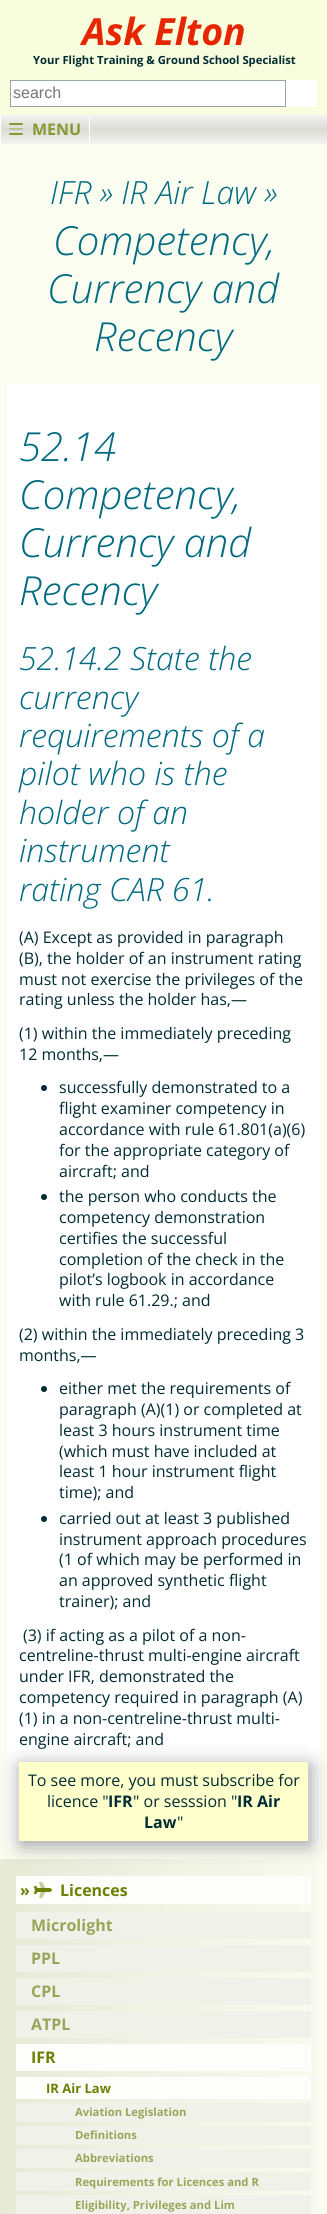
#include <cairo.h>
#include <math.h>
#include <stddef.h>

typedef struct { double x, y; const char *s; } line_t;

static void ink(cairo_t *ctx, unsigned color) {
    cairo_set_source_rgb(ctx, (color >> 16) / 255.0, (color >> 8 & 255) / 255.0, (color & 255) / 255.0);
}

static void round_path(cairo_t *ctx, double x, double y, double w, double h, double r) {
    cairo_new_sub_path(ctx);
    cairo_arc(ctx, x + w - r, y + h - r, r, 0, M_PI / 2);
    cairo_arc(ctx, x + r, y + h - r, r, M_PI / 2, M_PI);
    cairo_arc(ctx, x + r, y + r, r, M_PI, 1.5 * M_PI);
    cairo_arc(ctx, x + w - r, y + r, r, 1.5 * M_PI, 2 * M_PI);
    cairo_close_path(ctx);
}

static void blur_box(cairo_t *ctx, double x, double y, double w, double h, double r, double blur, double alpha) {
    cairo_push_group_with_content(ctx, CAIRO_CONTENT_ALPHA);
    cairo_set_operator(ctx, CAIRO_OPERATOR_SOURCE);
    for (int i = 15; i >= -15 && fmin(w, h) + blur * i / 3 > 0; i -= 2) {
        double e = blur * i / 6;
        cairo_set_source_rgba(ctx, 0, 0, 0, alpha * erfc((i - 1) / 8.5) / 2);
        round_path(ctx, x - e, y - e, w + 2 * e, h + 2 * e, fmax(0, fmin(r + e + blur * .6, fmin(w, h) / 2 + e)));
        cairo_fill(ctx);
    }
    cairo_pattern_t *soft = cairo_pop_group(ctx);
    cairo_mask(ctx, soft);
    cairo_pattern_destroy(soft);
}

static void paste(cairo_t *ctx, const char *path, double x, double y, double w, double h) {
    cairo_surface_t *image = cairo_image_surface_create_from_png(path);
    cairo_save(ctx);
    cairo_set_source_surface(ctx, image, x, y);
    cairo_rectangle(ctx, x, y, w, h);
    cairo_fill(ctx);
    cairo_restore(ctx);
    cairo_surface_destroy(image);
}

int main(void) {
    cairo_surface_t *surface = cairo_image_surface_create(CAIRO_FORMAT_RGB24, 327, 2214);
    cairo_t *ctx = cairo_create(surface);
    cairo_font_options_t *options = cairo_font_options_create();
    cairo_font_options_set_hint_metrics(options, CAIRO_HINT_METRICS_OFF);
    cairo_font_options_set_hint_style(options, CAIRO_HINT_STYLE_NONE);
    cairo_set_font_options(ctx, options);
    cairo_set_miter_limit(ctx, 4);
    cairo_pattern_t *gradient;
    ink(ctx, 0xFBFDF1);
    cairo_paint(ctx);
    ink(ctx, 0xF8FDDD);
    cairo_rectangle(ctx, 0, 0, 327, 115);
    cairo_fill(ctx);
    cairo_select_font_face(ctx, "Open Sans", CAIRO_FONT_SLANT_ITALIC, CAIRO_FONT_WEIGHT_BOLD);
    cairo_set_font_size(ctx, 37.5);
    ink(ctx, 0xE62600);
    cairo_move_to(ctx, 82, 45);
    cairo_show_text(ctx, "Ask Elton");
    cairo_select_font_face(ctx, "Open Sans", CAIRO_FONT_SLANT_NORMAL, CAIRO_FONT_WEIGHT_BOLD);
    cairo_set_font_size(ctx, 11.25);
    ink(ctx, 0x002B33);
    cairo_move_to(ctx, 33, 64);
    cairo_show_text(ctx, "Your Flight Training & Ground School Specialist");
    ink(ctx, 0xFFFFFF);
    cairo_rectangle(ctx, 11, 80, 306, 27);
    cairo_fill(ctx);
    cairo_rectangle(ctx, 10.5, 80.5, 275, 26);
    ink(ctx, 0x98A6A9);
    cairo_set_line_width(ctx, 1);
    cairo_stroke(ctx);
    cairo_select_font_face(ctx, "Liberation Sans", CAIRO_FONT_SLANT_NORMAL, CAIRO_FONT_WEIGHT_NORMAL);
    cairo_set_font_size(ctx, 16);
    ink(ctx, 0x757575);
    cairo_move_to(ctx, 13, 98);
    cairo_show_text(ctx, "search");
    gradient = cairo_pattern_create_linear(164, 115, 164, 144);
    cairo_pattern_add_color_stop_rgba(gradient, 0, 0.953, 0.957, 0.945, 1);
    cairo_pattern_add_color_stop_rgba(gradient, 0.5, 0.859, 0.863, 0.839, 1);
    cairo_pattern_add_color_stop_rgba(gradient, 1, 0.953, 0.957, 0.945, 1);
    cairo_set_source(ctx, gradient);
    cairo_pattern_destroy(gradient);
    cairo_rectangle(ctx, 1, 115, 326, 29);
    cairo_fill(ctx);
    ink(ctx, 0xFFFFFF);
    cairo_rectangle(ctx, 89, 115, 1, 29);
    cairo_fill(ctx);
    cairo_rectangle(ctx, 0, 115, 1, 29);
    cairo_fill(ctx);
    paste(ctx, "media/1.png", 9, 123, 14, 12);
    cairo_select_font_face(ctx, "Open Sans", CAIRO_FONT_SLANT_NORMAL, CAIRO_FONT_WEIGHT_BOLD);
    ink(ctx, 0x889933);
    cairo_move_to(ctx, 32, 135);
    cairo_show_text(ctx, "MENU");
    cairo_select_font_face(ctx, "Open Sans Light", CAIRO_FONT_SLANT_ITALIC, CAIRO_FONT_WEIGHT_NORMAL);
    cairo_set_font_size(ctx, 32);
    ink(ctx, 0x006A80);
    cairo_move_to(ctx, 50, 204);
    cairo_show_text(ctx, "IFR » IR Air Law »");
    cairo_set_font_size(ctx, 40);
    {
        static const line_t items[] = {
            {53, 255, "Competency,"},
            {47, 303, "Currency and"},
            {94, 351, "Recency"},
        };
        for (size_t i = 0; i < sizeof items / sizeof *items; i++) {
            cairo_move_to(ctx, items[i].x, items[i].y);
            cairo_show_text(ctx, items[i].s);
        }
    }
    ink(ctx, 0xFFFFFF);
    cairo_rectangle(ctx, 7, 384, 313, 1463);
    cairo_fill(ctx);
    ink(ctx, 0x006A80);
    {
        static const line_t items[] = {
            {19, 461, "52.14"},
            {19, 509, "Competency,"},
            {19, 557, "Currency and"},
            {19, 605, "Recency"},
        };
        for (size_t i = 0; i < sizeof items / sizeof *items; i++) {
            cairo_move_to(ctx, items[i].x, items[i].y);
            cairo_show_text(ctx, items[i].s);
        }
    }
    cairo_set_font_size(ctx, 32);
    {
        static const line_t items[] = {
            {19, 670, "52.14.2 State the"},
            {19, 709, "currency"},
            {19, 747, "requirements of a"},
            {19, 785, "pilot who is the"},
            {19, 824, "holder of an"},
            {19, 862, "instrument"},
            {19, 901, "rating CAR 61."},
        };
        for (size_t i = 0; i < sizeof items / sizeof *items; i++) {
            cairo_move_to(ctx, items[i].x, items[i].y);
            cairo_show_text(ctx, items[i].s);
        }
    }
    cairo_select_font_face(ctx, "Open Sans", CAIRO_FONT_SLANT_NORMAL, CAIRO_FONT_WEIGHT_NORMAL);
    cairo_set_font_size(ctx, 16);
    ink(ctx, 0x002B33);
    {
        static const line_t items[] = {
            {19, 943, "(A) Except as provided in paragraph"},
            {19, 964, "(B), the holder of an instrument rating"},
            {19, 985, "must not exercise the privileges of the"},
            {19, 1005, "rating unless the holder has,—"},
            {19, 1039, "(1) within the immediately preceding"},
            {19, 1060, "12 months,—"},
        };
        for (size_t i = 0; i < sizeof items / sizeof *items; i++) {
            cairo_move_to(ctx, items[i].x, items[i].y);
            cairo_show_text(ctx, items[i].s);
        }
    }
    cairo_new_path(ctx);
    cairo_arc(ctx, 44, 1088, 3, 0, 2 * M_PI);
    cairo_fill(ctx);
    {
        static const line_t items[] = {
            {59, 1093, "successfully demonstrated to a"},
            {59, 1114, "flight examiner competency in"},
            {59, 1135, "accordance with rule 61.801(a)(6)"},
            {59, 1156, "for the appropriate category of"},
            {59, 1177, "aircraft; and"},
        };
        for (size_t i = 0; i < sizeof items / sizeof *items; i++) {
            cairo_move_to(ctx, items[i].x, items[i].y);
            cairo_show_text(ctx, items[i].s);
        }
    }
    cairo_new_path(ctx);
    cairo_arc(ctx, 44, 1197, 3, 0, 2 * M_PI);
    cairo_fill(ctx);
    {
        static const line_t items[] = {
            {59, 1202, "the person who conducts the"},
            {59, 1223, "competency demonstration"},
            {59, 1244, "certifies the successful"},
            {59, 1265, "completion of the check in the"},
            {59, 1285, "pilot’s logbook in accordance"},
            {59, 1306, "with rule 61.29.; and"},
            {19, 1340, "(2) within the immediately preceding 3"},
            {19, 1361, "months,—"},
        };
        for (size_t i = 0; i < sizeof items / sizeof *items; i++) {
            cairo_move_to(ctx, items[i].x, items[i].y);
            cairo_show_text(ctx, items[i].s);
        }
    }
    cairo_new_path(ctx);
    cairo_arc(ctx, 44, 1389, 3, 0, 2 * M_PI);
    cairo_fill(ctx);
    {
        static const line_t items[] = {
            {59, 1394, "either met the requirements of"},
            {59, 1415, "paragraph (A)(1) or completed at"},
            {59, 1436, "least 3 hours instrument time"},
            {59, 1457, "(which must have included at"},
            {59, 1477, "least 1 hour instrument flight"},
            {59, 1498, "time); and"},
        };
        for (size_t i = 0; i < sizeof items / sizeof *items; i++) {
            cairo_move_to(ctx, items[i].x, items[i].y);
            cairo_show_text(ctx, items[i].s);
        }
    }
    cairo_new_path(ctx);
    cairo_arc(ctx, 44, 1519, 3, 0, 2 * M_PI);
    cairo_fill(ctx);
    {
        static const line_t items[] = {
            {59, 1524, "carried out at least 3 published"},
            {59, 1545, "instrument approach procedures"},
            {59, 1565, "(1 of which may be performed in"},
            {59, 1586, "an approved synthetic flight"},
            {59, 1607, "trainer); and"},
            {23, 1641, "(3) if acting as a pilot of a non-"},
            {19, 1661, "centreline-thrust multi-engine aircraft"},
            {19, 1682, "under IFR, demonstrated the"},
            {19, 1703, "competency required in paragraph (A)"},
            {19, 1724, "(1) in a non-centreline-thrust multi-"},
        };
        for (size_t i = 0; i < sizeof items / sizeof *items; i++) {
            cairo_move_to(ctx, items[i].x, items[i].y);
            cairo_show_text(ctx, items[i].s);
        }
    }
    gradient = cairo_pattern_create_linear(0, 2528, 327, 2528);
    cairo_pattern_add_color_stop_rgba(gradient, 0, 0.906, 0.918, 0.843, 1);
    cairo_pattern_add_color_stop_rgba(gradient, 1, 0.98, 0.984, 0.941, 1);
    cairo_set_source(ctx, gradient);
    cairo_pattern_destroy(gradient);
    cairo_rectangle(ctx, 0, 1859, 317, 355);
    cairo_fill(ctx);
    ink(ctx, 0x999999);
    blur_box(ctx, 21, 1766, 289, 79, 0, 10, 1);
    ink(ctx, 0x002B33);
    cairo_move_to(ctx, 19, 1745);
    cairo_show_text(ctx, "engine aircraft; and");
    ink(ctx, 0xFFFFCC);
    cairo_rectangle(ctx, 19, 1762, 289, 79);
    cairo_fill(ctx);
    ink(ctx, 0x002B33);
    cairo_move_to(ctx, 28, 1786);
    cairo_show_text(ctx, "To see more, you must subscribe for");
    cairo_move_to(ctx, 47, 1807);
    cairo_show_text(ctx, "licence \"");
    cairo_select_font_face(ctx, "Open Sans", CAIRO_FONT_SLANT_NORMAL, CAIRO_FONT_WEIGHT_BOLD);
    cairo_move_to(ctx, 108, 1807);
    cairo_show_text(ctx, "IFR");
    cairo_select_font_face(ctx, "Open Sans", CAIRO_FONT_SLANT_NORMAL, CAIRO_FONT_WEIGHT_NORMAL);
    cairo_move_to(ctx, 133, 1807);
    cairo_show_text(ctx, "\" or sesssion \"");
    cairo_select_font_face(ctx, "Open Sans", CAIRO_FONT_SLANT_NORMAL, CAIRO_FONT_WEIGHT_BOLD);
    cairo_move_to(ctx, 237, 1807);
    cairo_show_text(ctx, "IR Air");
    cairo_move_to(ctx, 144, 1828);
    cairo_show_text(ctx, "Law");
    cairo_select_font_face(ctx, "Open Sans", CAIRO_FONT_SLANT_NORMAL, CAIRO_FONT_WEIGHT_NORMAL);
    cairo_move_to(ctx, 177, 1828);
    cairo_show_text(ctx, "\"");
    ink(ctx, 0xFDFDFC);
    cairo_rectangle(ctx, 16, 1876, 295, 28);
    cairo_fill(ctx);
    cairo_select_font_face(ctx, "Open Sans", CAIRO_FONT_SLANT_NORMAL, CAIRO_FONT_WEIGHT_BOLD);
    ink(ctx, 0x6A8000);
    cairo_move_to(ctx, 20, 1896);
    cairo_show_text(ctx, "»");
    paste(ctx, "media/2.png", 34, 1882, 18, 16);
    cairo_move_to(ctx, 60, 1896);
    cairo_show_text(ctx, "Licences");
    ink(ctx, 0xF0F1E9);
    cairo_rectangle(ctx, 16, 1912, 295, 27);
    cairo_fill(ctx);
    ink(ctx, 0x99A659);
    cairo_move_to(ctx, 31, 1931);
    cairo_show_text(ctx, "Microlight");
    ink(ctx, 0xF0F1E9);
    cairo_rectangle(ctx, 16, 1945, 295, 27);
    cairo_fill(ctx);
    ink(ctx, 0x99A659);
    cairo_move_to(ctx, 31, 1964);
    cairo_show_text(ctx, "PPL");
    ink(ctx, 0xF0F1E9);
    cairo_rectangle(ctx, 16, 1978, 295, 27);
    cairo_fill(ctx);
    ink(ctx, 0x99A659);
    cairo_move_to(ctx, 31, 1997);
    cairo_show_text(ctx, "CPL");
    ink(ctx, 0xF0F1E9);
    cairo_rectangle(ctx, 16, 2011, 295, 27);
    cairo_fill(ctx);
    ink(ctx, 0x99A659);
    cairo_move_to(ctx, 31, 2030);
    cairo_show_text(ctx, "ATPL");
    ink(ctx, 0xFDFDFC);
    cairo_rectangle(ctx, 16, 2044, 295, 27);
    cairo_fill(ctx);
    ink(ctx, 0x6A8000);
    cairo_move_to(ctx, 31, 2063);
    cairo_show_text(ctx, "IFR");
    ink(ctx, 0xFDFDFC);
    cairo_rectangle(ctx, 16, 2077, 295, 22);
    cairo_fill(ctx);
    cairo_set_font_size(ctx, 13);
    ink(ctx, 0x6A8000);
    cairo_move_to(ctx, 46, 2093);
    cairo_show_text(ctx, "IR Air Law");
    ink(ctx, 0xF0F1E9);
    cairo_rectangle(ctx, 16, 2103, 295, 19);
    cairo_fill(ctx);
    cairo_set_font_size(ctx, 11.25);
    ink(ctx, 0x99A659);
    cairo_move_to(ctx, 75, 2116);
    cairo_show_text(ctx, "Aviation Legislation");
    ink(ctx, 0xF0F1E9);
    cairo_rectangle(ctx, 16, 2126, 295, 19);
    cairo_fill(ctx);
    ink(ctx, 0x99A659);
    cairo_move_to(ctx, 75, 2139);
    cairo_show_text(ctx, "Definitions");
    ink(ctx, 0xF0F1E9);
    cairo_rectangle(ctx, 16, 2149, 295, 19);
    cairo_fill(ctx);
    ink(ctx, 0x99A659);
    cairo_move_to(ctx, 75, 2162);
    cairo_show_text(ctx, "Abbreviations");
    ink(ctx, 0xF0F1E9);
    cairo_rectangle(ctx, 16, 2172, 295, 19);
    cairo_fill(ctx);
    ink(ctx, 0x99A659);
    cairo_move_to(ctx, 75, 2186);
    cairo_show_text(ctx, "Requirements for Licences and R");
    ink(ctx, 0xF0F1E9);
    cairo_rectangle(ctx, 16, 2195, 295, 19);
    cairo_fill(ctx);
    ink(ctx, 0x99A659);
    cairo_move_to(ctx, 75, 2209);
    cairo_show_text(ctx, "Eligibility, Privileges and Lim");
    cairo_surface_write_to_png(surface, "image.png");
    cairo_font_options_destroy(options);
    cairo_destroy(ctx);
    cairo_surface_destroy(surface);
    return 0;
}
